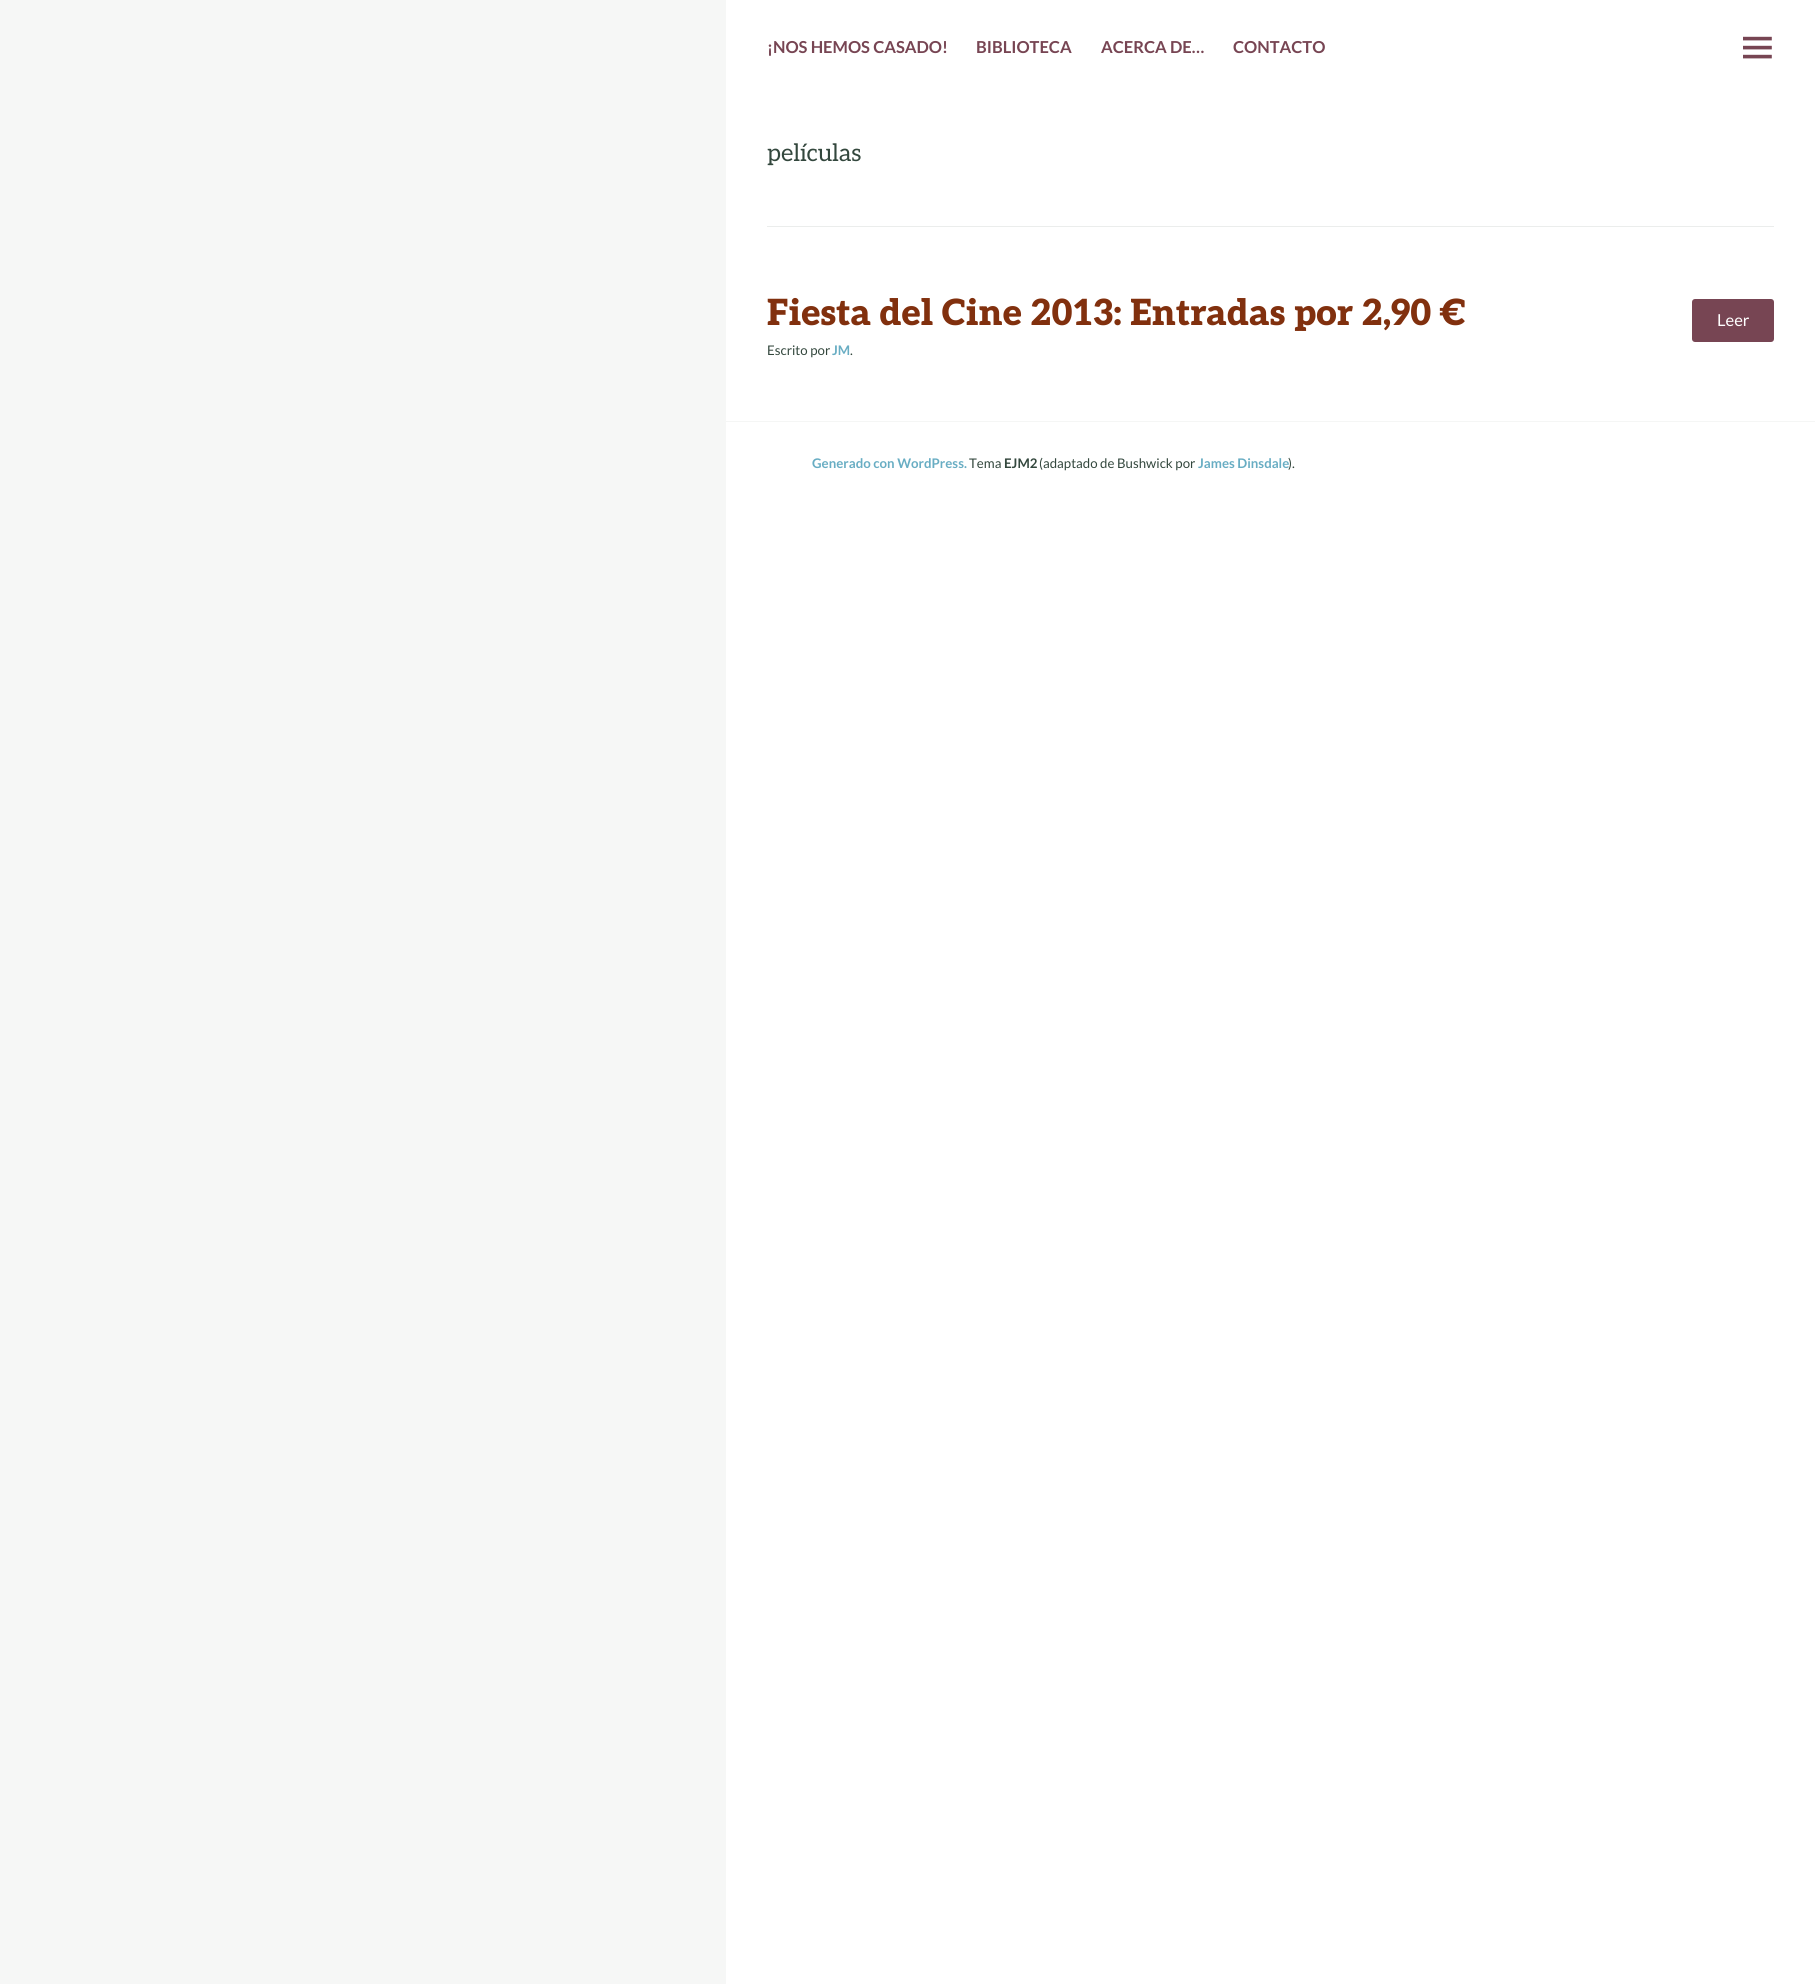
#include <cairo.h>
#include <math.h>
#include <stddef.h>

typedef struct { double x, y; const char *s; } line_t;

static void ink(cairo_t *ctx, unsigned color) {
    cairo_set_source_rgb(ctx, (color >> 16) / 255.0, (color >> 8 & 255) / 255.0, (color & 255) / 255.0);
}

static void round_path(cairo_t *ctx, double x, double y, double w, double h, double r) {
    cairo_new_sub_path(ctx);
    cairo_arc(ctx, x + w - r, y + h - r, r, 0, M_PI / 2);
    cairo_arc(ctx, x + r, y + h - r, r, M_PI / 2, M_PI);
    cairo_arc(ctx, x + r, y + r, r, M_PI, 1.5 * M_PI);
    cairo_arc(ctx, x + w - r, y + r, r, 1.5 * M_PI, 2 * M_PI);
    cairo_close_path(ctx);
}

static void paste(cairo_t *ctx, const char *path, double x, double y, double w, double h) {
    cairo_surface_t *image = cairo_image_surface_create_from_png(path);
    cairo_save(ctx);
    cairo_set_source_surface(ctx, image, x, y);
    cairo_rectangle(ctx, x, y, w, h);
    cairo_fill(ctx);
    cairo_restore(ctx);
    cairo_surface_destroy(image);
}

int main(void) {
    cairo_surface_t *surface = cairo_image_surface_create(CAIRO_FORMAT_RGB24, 1815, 1984);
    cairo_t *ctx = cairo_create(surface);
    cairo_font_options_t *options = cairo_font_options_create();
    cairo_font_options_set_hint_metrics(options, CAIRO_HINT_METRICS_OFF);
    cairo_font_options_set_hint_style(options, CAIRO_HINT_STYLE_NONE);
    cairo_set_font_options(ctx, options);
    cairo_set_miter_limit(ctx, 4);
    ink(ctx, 0xFFFFFF);
    cairo_paint(ctx);
    ink(ctx, 0xF6F7F6);
    cairo_rectangle(ctx, 0, 0, 726, 1984);
    cairo_fill(ctx);
    cairo_select_font_face(ctx, "Lato", CAIRO_FONT_SLANT_NORMAL, CAIRO_FONT_WEIGHT_BOLD);
    cairo_set_font_size(ctx, 16.5);
    ink(ctx, 0x774553);
    {
        static const line_t items[] = {
            {767, 53, "¡NOS HEMOS CASADO!"},
            {976, 53, "BIBLIOTECA"},
            {1101, 53, "ACERCA DE…"},
            {1233, 53, "CONTACTO"},
        };
        for (size_t i = 0; i < sizeof items / sizeof *items; i++) {
            cairo_move_to(ctx, items[i].x, items[i].y);
            cairo_show_text(ctx, items[i].s);
        }
    }
    paste(ctx, "media/1.png", 1743, 36, 29, 23);
    cairo_select_font_face(ctx, "Aleo", CAIRO_FONT_SLANT_NORMAL, CAIRO_FONT_WEIGHT_NORMAL);
    cairo_set_font_size(ctx, 24);
    ink(ctx, 0x33473D);
    cairo_move_to(ctx, 767, 161);
    cairo_show_text(ctx, "películas");
    ink(ctx, 0xEBEDEC);
    cairo_rectangle(ctx, 767, 226, 1007, 1);
    cairo_fill(ctx);
    cairo_select_font_face(ctx, "Aleo Black", CAIRO_FONT_SLANT_NORMAL, CAIRO_FONT_WEIGHT_NORMAL);
    cairo_set_font_size(ctx, 36);
    ink(ctx, 0x81300E);
    cairo_move_to(ctx, 767, 325);
    cairo_show_text(ctx, "Fiesta del Cine 2013: Entradas por 2,90 €");
    ink(ctx, 0x774553);
    round_path(ctx, 1692, 299, 82, 43, 3);
    cairo_fill(ctx);
    cairo_select_font_face(ctx, "Lato", CAIRO_FONT_SLANT_NORMAL, CAIRO_FONT_WEIGHT_NORMAL);
    cairo_set_font_size(ctx, 16.5);
    ink(ctx, 0xFFFFFF);
    cairo_move_to(ctx, 1717, 326);
    cairo_show_text(ctx, "Leer");
    cairo_set_font_size(ctx, 13.25);
    ink(ctx, 0x33473D);
    cairo_move_to(ctx, 767, 355);
    cairo_show_text(ctx, "Escrito por");
    cairo_select_font_face(ctx, "Lato", CAIRO_FONT_SLANT_NORMAL, CAIRO_FONT_WEIGHT_BOLD);
    ink(ctx, 0x68ADC3);
    cairo_move_to(ctx, 832, 355);
    cairo_show_text(ctx, "JM");
    cairo_select_font_face(ctx, "Lato", CAIRO_FONT_SLANT_NORMAL, CAIRO_FONT_WEIGHT_NORMAL);
    ink(ctx, 0x33473D);
    cairo_move_to(ctx, 850, 355);
    cairo_show_text(ctx, ".");
    ink(ctx, 0xF5F6F5);
    cairo_rectangle(ctx, 726, 421, 1089, 1);
    cairo_fill(ctx);
    cairo_select_font_face(ctx, "Lato", CAIRO_FONT_SLANT_NORMAL, CAIRO_FONT_WEIGHT_BOLD);
    ink(ctx, 0x68ADC3);
    cairo_move_to(ctx, 812, 468);
    cairo_show_text(ctx, "Generado con WordPress.");
    cairo_select_font_face(ctx, "Lato", CAIRO_FONT_SLANT_NORMAL, CAIRO_FONT_WEIGHT_NORMAL);
    ink(ctx, 0x33473D);
    cairo_move_to(ctx, 969, 468);
    cairo_show_text(ctx, "Tema");
    cairo_select_font_face(ctx, "Lato", CAIRO_FONT_SLANT_NORMAL, CAIRO_FONT_WEIGHT_BOLD);
    cairo_move_to(ctx, 1004, 468);
    cairo_show_text(ctx, "EJM2");
    cairo_select_font_face(ctx, "Lato", CAIRO_FONT_SLANT_NORMAL, CAIRO_FONT_WEIGHT_NORMAL);
    cairo_move_to(ctx, 1039, 468);
    cairo_show_text(ctx, "(adaptado de Bushwick por");
    cairo_select_font_face(ctx, "Lato", CAIRO_FONT_SLANT_NORMAL, CAIRO_FONT_WEIGHT_BOLD);
    ink(ctx, 0x68ADC3);
    cairo_move_to(ctx, 1198, 468);
    cairo_show_text(ctx, "James Dinsdale");
    cairo_select_font_face(ctx, "Lato", CAIRO_FONT_SLANT_NORMAL, CAIRO_FONT_WEIGHT_NORMAL);
    ink(ctx, 0x33473D);
    cairo_move_to(ctx, 1288, 468);
    cairo_show_text(ctx, ").");
    cairo_surface_write_to_png(surface, "image.png");
    cairo_font_options_destroy(options);
    cairo_destroy(ctx);
    cairo_surface_destroy(surface);
    return 0;
}
